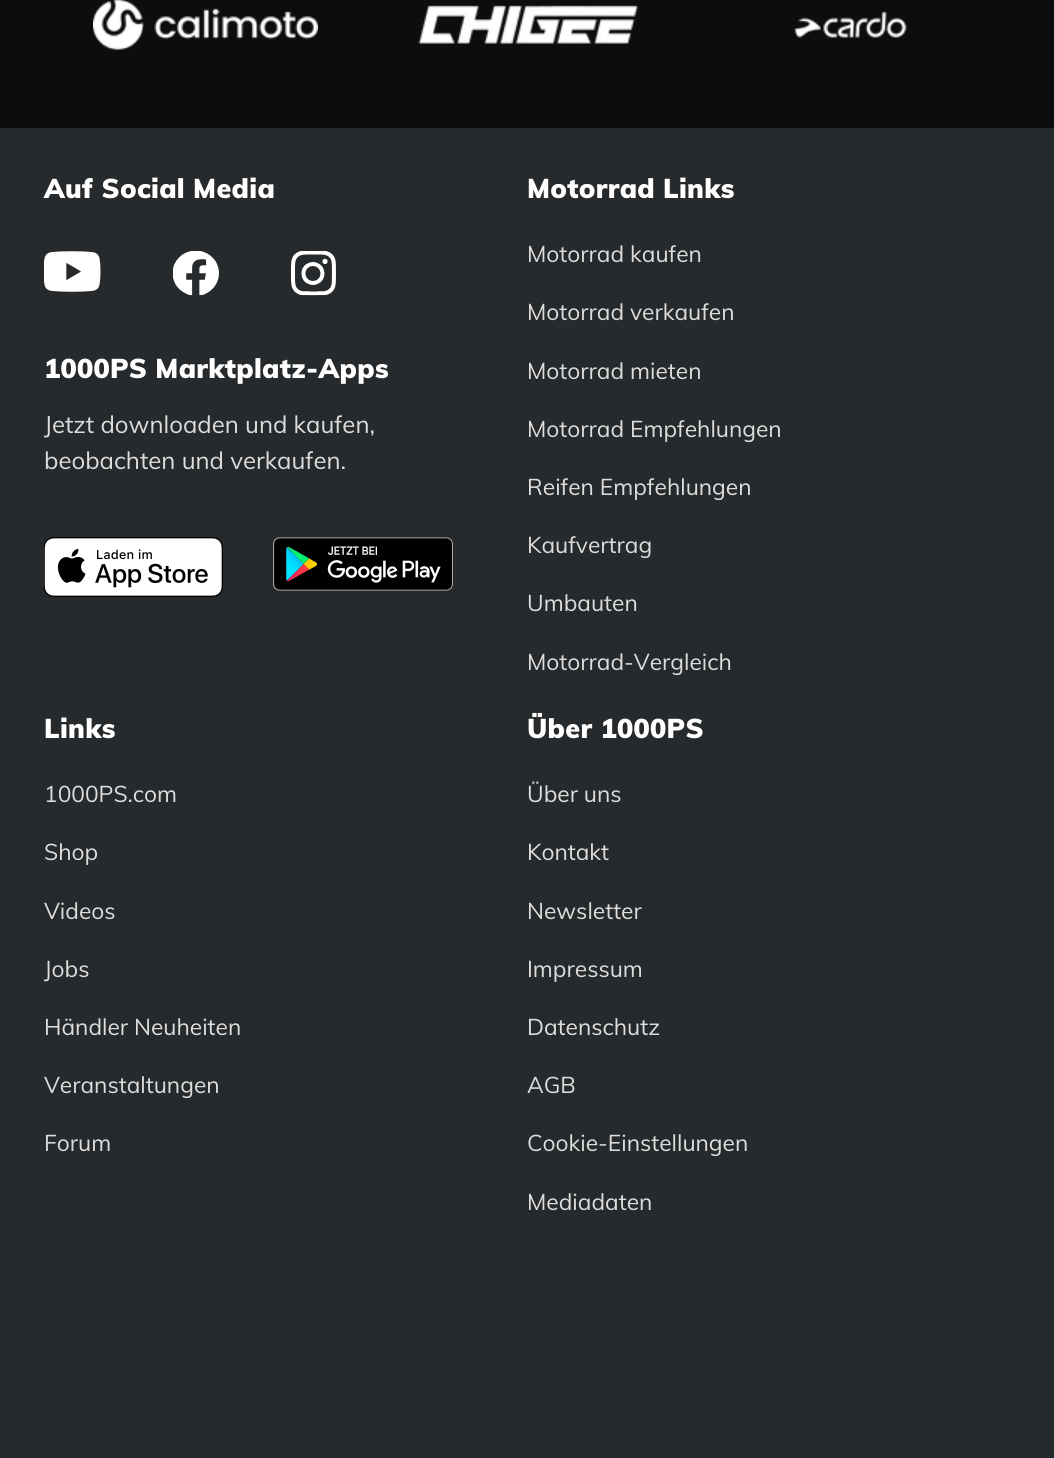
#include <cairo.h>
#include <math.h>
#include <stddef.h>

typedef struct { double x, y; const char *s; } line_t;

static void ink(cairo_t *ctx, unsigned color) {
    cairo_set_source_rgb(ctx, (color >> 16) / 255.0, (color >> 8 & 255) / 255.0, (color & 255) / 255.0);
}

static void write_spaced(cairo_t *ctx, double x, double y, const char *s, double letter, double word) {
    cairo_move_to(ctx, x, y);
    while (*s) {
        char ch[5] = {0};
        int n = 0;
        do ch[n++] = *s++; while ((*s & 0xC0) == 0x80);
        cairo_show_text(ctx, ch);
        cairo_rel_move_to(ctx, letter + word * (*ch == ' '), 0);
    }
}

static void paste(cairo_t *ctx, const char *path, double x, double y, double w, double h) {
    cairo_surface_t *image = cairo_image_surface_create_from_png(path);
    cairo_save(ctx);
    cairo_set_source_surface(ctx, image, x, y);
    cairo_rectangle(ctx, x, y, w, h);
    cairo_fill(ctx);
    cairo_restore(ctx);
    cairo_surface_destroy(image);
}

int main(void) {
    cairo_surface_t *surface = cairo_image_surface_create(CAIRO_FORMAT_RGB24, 1054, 1458);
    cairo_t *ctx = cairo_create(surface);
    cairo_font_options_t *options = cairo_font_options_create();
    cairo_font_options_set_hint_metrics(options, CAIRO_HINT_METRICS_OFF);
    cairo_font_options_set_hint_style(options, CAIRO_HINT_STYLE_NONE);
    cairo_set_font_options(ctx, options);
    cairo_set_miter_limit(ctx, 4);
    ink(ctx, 0x272A2C);
    cairo_paint(ctx);
    ink(ctx, 0x0C0D0D);
    cairo_rectangle(ctx, 0, 0, 1054, 128);
    cairo_fill(ctx);
    paste(ctx, "media/1.png", 93, 0, 225, 50);
    paste(ctx, "media/2.png", 418, 5, 220, 39);
    paste(ctx, "media/3.png", 794, 11, 113, 27);
    cairo_select_font_face(ctx, "Muli Black", CAIRO_FONT_SLANT_NORMAL, CAIRO_FONT_WEIGHT_NORMAL);
    cairo_set_font_size(ctx, 27);
    ink(ctx, 0xFFFFFF);
    write_spaced(ctx, 44, 198, "Auf Social Media", 0.3, 0);
    paste(ctx, "media/4.png", 44, 251, 57, 41);
    paste(ctx, "media/5.png", 173, 251, 46, 45);
    paste(ctx, "media/6.png", 291, 251, 45, 45);
    write_spaced(ctx, 44, 378, "1000PS Marktplatz-Apps", 0.3, 0);
    cairo_select_font_face(ctx, "Muli", CAIRO_FONT_SLANT_NORMAL, CAIRO_FONT_WEIGHT_NORMAL);
    cairo_set_font_size(ctx, 24);
    ink(ctx, 0xDDDDDD);
    cairo_move_to(ctx, 44, 433);
    cairo_show_text(ctx, "Jetzt downloaden und kaufen,");
    cairo_move_to(ctx, 44, 469);
    cairo_show_text(ctx, "beobachten und verkaufen.");
    paste(ctx, "media/7.png", 44, 537, 179, 60);
    paste(ctx, "media/8.png", 273, 537, 180, 54);
    cairo_select_font_face(ctx, "Muli Black", CAIRO_FONT_SLANT_NORMAL, CAIRO_FONT_WEIGHT_NORMAL);
    cairo_set_font_size(ctx, 27);
    ink(ctx, 0xFFFFFF);
    write_spaced(ctx, 527, 198, "Motorrad Links", 0.3, 0);
    cairo_select_font_face(ctx, "Muli", CAIRO_FONT_SLANT_NORMAL, CAIRO_FONT_WEIGHT_NORMAL);
    cairo_set_font_size(ctx, 22.75);
    ink(ctx, 0xDDDDDD);
    {
        static const line_t items[] = {
            {527, 262, "Motorrad kaufen"},
            {527, 320, "Motorrad verkaufen"},
            {527, 379, "Motorrad mieten"},
            {527, 437, "Motorrad Empfehlungen"},
            {527, 495, "Reifen Empfehlungen"},
            {527, 553, "Kaufvertrag"},
            {527, 611, "Umbauten"},
            {527, 670, "Motorrad-Vergleich"},
        };
        for (size_t i = 0; i < sizeof items / sizeof *items; i++) {
            cairo_move_to(ctx, items[i].x, items[i].y);
            cairo_show_text(ctx, items[i].s);
        }
    }
    cairo_select_font_face(ctx, "Muli Black", CAIRO_FONT_SLANT_NORMAL, CAIRO_FONT_WEIGHT_NORMAL);
    cairo_set_font_size(ctx, 27);
    ink(ctx, 0xFFFFFF);
    write_spaced(ctx, 44, 738, "Links", 0.3, 0);
    cairo_select_font_face(ctx, "Muli", CAIRO_FONT_SLANT_NORMAL, CAIRO_FONT_WEIGHT_NORMAL);
    cairo_set_font_size(ctx, 22.75);
    ink(ctx, 0xDDDDDD);
    {
        static const line_t items[] = {
            {44, 802, "1000PS.com"},
            {44, 860, "Shop"},
            {44, 919, "Videos"},
            {44, 977, "Jobs"},
            {44, 1035, "Händler Neuheiten"},
            {44, 1093, "Veranstaltungen"},
            {44, 1151, "Forum"},
        };
        for (size_t i = 0; i < sizeof items / sizeof *items; i++) {
            cairo_move_to(ctx, items[i].x, items[i].y);
            cairo_show_text(ctx, items[i].s);
        }
    }
    cairo_select_font_face(ctx, "Muli Black", CAIRO_FONT_SLANT_NORMAL, CAIRO_FONT_WEIGHT_NORMAL);
    cairo_set_font_size(ctx, 27);
    ink(ctx, 0xFFFFFF);
    write_spaced(ctx, 527, 738, "Über 1000PS", 0.3, 0);
    cairo_select_font_face(ctx, "Muli", CAIRO_FONT_SLANT_NORMAL, CAIRO_FONT_WEIGHT_NORMAL);
    cairo_set_font_size(ctx, 22.75);
    ink(ctx, 0xDDDDDD);
    {
        static const line_t items[] = {
            {527, 802, "Über uns"},
            {527, 860, "Kontakt"},
            {527, 919, "Newsletter"},
            {527, 977, "Impressum"},
            {527, 1035, "Datenschutz"},
            {527, 1093, "AGB"},
            {527, 1151, "Cookie-Einstellungen"},
            {527, 1210, "Mediadaten"},
        };
        for (size_t i = 0; i < sizeof items / sizeof *items; i++) {
            cairo_move_to(ctx, items[i].x, items[i].y);
            cairo_show_text(ctx, items[i].s);
        }
    }
    cairo_surface_write_to_png(surface, "image.png");
    cairo_font_options_destroy(options);
    cairo_destroy(ctx);
    cairo_surface_destroy(surface);
    return 0;
}
